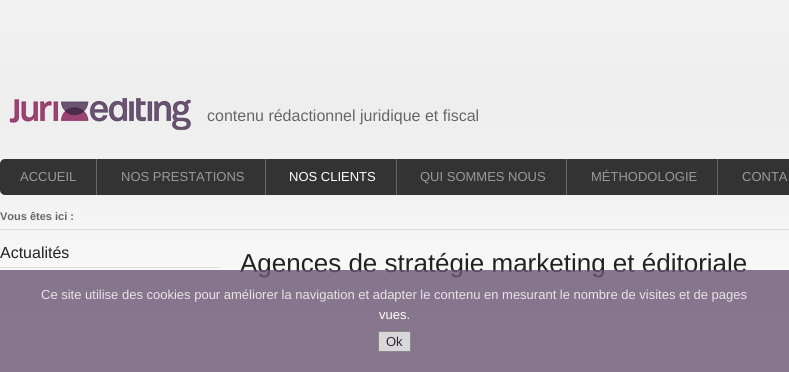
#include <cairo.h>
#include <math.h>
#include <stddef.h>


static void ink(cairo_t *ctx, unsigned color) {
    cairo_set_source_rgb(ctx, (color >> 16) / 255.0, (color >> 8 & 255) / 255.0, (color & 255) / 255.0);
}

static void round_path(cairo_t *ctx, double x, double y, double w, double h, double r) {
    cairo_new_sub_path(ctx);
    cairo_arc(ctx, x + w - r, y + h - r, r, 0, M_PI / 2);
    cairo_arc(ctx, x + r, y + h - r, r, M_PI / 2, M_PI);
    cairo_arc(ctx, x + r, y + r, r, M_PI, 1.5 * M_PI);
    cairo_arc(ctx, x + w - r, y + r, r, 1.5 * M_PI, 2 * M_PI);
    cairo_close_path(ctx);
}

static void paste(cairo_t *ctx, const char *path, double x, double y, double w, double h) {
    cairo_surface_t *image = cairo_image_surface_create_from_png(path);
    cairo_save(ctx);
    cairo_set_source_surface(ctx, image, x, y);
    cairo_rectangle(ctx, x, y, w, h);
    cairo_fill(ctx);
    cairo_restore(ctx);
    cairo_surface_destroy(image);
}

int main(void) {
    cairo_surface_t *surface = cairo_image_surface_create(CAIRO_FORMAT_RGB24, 789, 372);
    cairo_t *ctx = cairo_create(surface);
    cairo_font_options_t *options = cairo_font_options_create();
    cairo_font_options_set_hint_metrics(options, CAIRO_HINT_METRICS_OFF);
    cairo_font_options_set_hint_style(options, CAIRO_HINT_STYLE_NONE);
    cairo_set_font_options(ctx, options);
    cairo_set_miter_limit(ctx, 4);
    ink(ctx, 0xFFFFFF);
    cairo_paint(ctx);
    paste(ctx, "media/1.png", 0, 0, 789, 311);
    paste(ctx, "media/2.png", 9, 98, 182, 32);
    cairo_select_font_face(ctx, "Liberation Sans", CAIRO_FONT_SLANT_NORMAL, CAIRO_FONT_WEIGHT_NORMAL);
    cairo_set_font_size(ctx, 16);
    ink(ctx, 0x666666);
    cairo_move_to(ctx, 207, 121);
    cairo_show_text(ctx, "contenu rédactionnel juridique et fiscal");
    ink(ctx, 0x333333);
    round_path(ctx, 0, 159, 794, 36, 5);
    cairo_fill(ctx);
    ink(ctx, 0x666666);
    cairo_rectangle(ctx, 96, 159, 1, 36);
    cairo_fill(ctx);
    cairo_set_font_size(ctx, 13);
    ink(ctx, 0x999999);
    cairo_move_to(ctx, 20, 181);
    cairo_show_text(ctx, "ACCUEIL");
    ink(ctx, 0x666666);
    cairo_rectangle(ctx, 265, 159, 1, 36);
    cairo_fill(ctx);
    ink(ctx, 0x999999);
    cairo_move_to(ctx, 121, 181);
    cairo_show_text(ctx, "NOS PRESTATIONS");
    ink(ctx, 0x666666);
    cairo_rectangle(ctx, 396, 159, 1, 36);
    cairo_fill(ctx);
    ink(ctx, 0xFFFFFF);
    cairo_move_to(ctx, 289, 181);
    cairo_show_text(ctx, "NOS CLIENTS");
    ink(ctx, 0x666666);
    cairo_rectangle(ctx, 566, 159, 1, 36);
    cairo_fill(ctx);
    ink(ctx, 0x999999);
    cairo_move_to(ctx, 420, 181);
    cairo_show_text(ctx, "QUI SOMMES NOUS");
    ink(ctx, 0x666666);
    cairo_rectangle(ctx, 717, 159, 1, 36);
    cairo_fill(ctx);
    ink(ctx, 0x999999);
    cairo_move_to(ctx, 591, 181);
    cairo_show_text(ctx, "MÉTHODOLOGIE");
    cairo_move_to(ctx, 742, 181);
    cairo_show_text(ctx, "CONTA");
    ink(ctx, 0xDDDDDD);
    cairo_rectangle(ctx, 0, 229, 789, 1);
    cairo_fill(ctx);
    cairo_select_font_face(ctx, "Liberation Sans", CAIRO_FONT_SLANT_NORMAL, CAIRO_FONT_WEIGHT_BOLD);
    cairo_set_font_size(ctx, 11);
    ink(ctx, 0x666666);
    cairo_move_to(ctx, 0, 220);
    cairo_show_text(ctx, "Vous êtes ici :");
    ink(ctx, 0xDDDDDD);
    cairo_rectangle(ctx, 0, 267, 220, 1);
    cairo_fill(ctx);
    cairo_select_font_face(ctx, "Liberation Sans", CAIRO_FONT_SLANT_NORMAL, CAIRO_FONT_WEIGHT_NORMAL);
    cairo_set_font_size(ctx, 16);
    ink(ctx, 0x222222);
    cairo_move_to(ctx, 0, 258);
    cairo_show_text(ctx, "Actualités");
    cairo_set_font_size(ctx, 26);
    cairo_move_to(ctx, 240, 272);
    cairo_show_text(ctx, "Agences de stratégie marketing et éditoriale");
    cairo_set_source_rgba(ctx, 0.412, 0.329, 0.443, 0.8);
    cairo_rectangle(ctx, 0, 270, 789, 102);
    cairo_fill(ctx);
    cairo_set_font_size(ctx, 13);
    ink(ctx, 0xE7E3E8);
    cairo_move_to(ctx, 41, 299);
    cairo_show_text(ctx, "Ce site utilise des cookies pour améliorer la navigation et adapter le contenu en mesurant le nombre de visites et de pages");
    ink(ctx, 0xFFFFFF);
    cairo_move_to(ctx, 379, 319);
    cairo_show_text(ctx, "vues.");
    cairo_set_source_rgba(ctx, 0.502, 0.502, 0.502, 0.4);
    cairo_new_path(ctx);
    cairo_move_to(ctx, 769.5, 315.5);
    cairo_line_to(ctx, 771, 317);
    cairo_line_to(ctx, 760.5, 327.5);
    cairo_line_to(ctx, 759, 326);
    cairo_close_path(ctx);
    cairo_fill(ctx);
    cairo_new_path(ctx);
    cairo_move_to(ctx, 759, 317);
    cairo_line_to(ctx, 760.5, 315.5);
    cairo_line_to(ctx, 771, 326);
    cairo_line_to(ctx, 769.5, 327.5);
    cairo_close_path(ctx);
    cairo_fill(ctx);
    cairo_set_source_rgba(ctx, 0.937, 0.937, 0.937, 0.8);
    round_path(ctx, 378, 331, 33, 21, 2);
    cairo_fill(ctx);
    round_path(ctx, 378.5, 331.5, 32, 20, 1.5);
    cairo_set_source_rgba(ctx, 0.463, 0.463, 0.463, 0.8);
    cairo_set_line_width(ctx, 1);
    cairo_stroke(ctx);
    ink(ctx, 0x2C2B2C);
    cairo_move_to(ctx, 386, 346);
    cairo_show_text(ctx, "Ok");
    cairo_surface_write_to_png(surface, "image.png");
    cairo_font_options_destroy(options);
    cairo_destroy(ctx);
    cairo_surface_destroy(surface);
    return 0;
}
